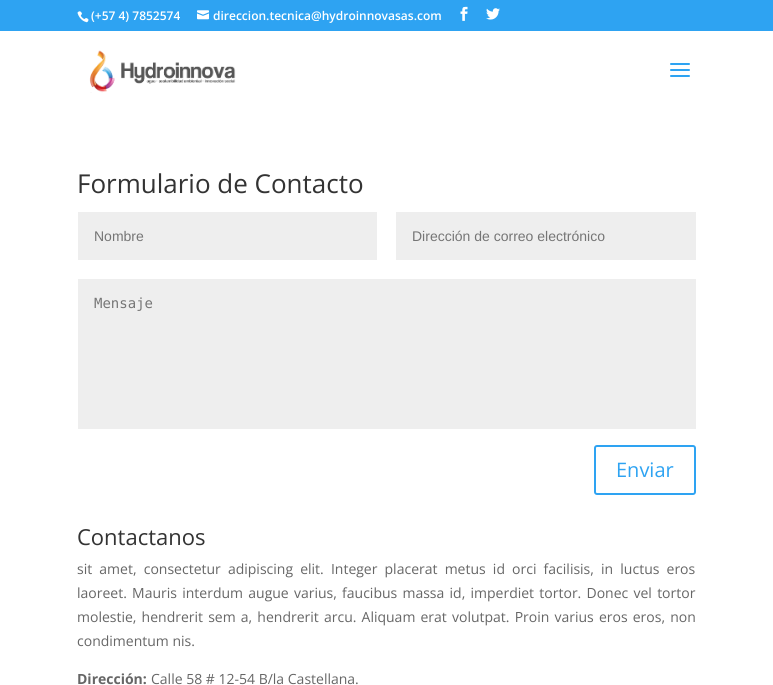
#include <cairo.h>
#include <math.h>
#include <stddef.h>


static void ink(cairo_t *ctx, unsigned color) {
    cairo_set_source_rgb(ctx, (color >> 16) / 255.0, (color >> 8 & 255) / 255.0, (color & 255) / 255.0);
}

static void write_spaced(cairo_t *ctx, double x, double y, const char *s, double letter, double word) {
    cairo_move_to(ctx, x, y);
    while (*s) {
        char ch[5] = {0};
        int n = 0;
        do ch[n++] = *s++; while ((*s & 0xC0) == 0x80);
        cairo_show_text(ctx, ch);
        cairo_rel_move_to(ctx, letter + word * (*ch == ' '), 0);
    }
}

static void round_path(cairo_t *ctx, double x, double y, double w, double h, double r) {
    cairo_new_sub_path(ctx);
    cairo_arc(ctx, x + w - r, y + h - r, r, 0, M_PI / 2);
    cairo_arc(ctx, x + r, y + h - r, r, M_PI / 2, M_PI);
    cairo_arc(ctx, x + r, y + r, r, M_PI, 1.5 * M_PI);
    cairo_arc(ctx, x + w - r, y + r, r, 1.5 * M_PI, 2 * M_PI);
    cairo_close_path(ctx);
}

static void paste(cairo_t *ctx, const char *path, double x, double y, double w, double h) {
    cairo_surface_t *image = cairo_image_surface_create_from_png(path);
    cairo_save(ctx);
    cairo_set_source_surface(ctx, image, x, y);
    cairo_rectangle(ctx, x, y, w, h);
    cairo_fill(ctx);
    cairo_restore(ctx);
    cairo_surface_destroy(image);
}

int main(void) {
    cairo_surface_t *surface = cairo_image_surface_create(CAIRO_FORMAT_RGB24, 773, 685);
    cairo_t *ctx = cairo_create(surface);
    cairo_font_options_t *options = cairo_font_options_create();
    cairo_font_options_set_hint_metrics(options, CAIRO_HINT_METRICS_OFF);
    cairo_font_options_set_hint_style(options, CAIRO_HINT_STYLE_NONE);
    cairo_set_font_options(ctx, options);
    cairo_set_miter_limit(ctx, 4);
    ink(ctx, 0xFFFFFF);
    cairo_paint(ctx);
    ink(ctx, 0x2EA3F2);
    cairo_rectangle(ctx, 0, 0, 773, 31);
    cairo_fill(ctx);
    paste(ctx, "media/1.png", 77, 11, 12, 12);
    cairo_select_font_face(ctx, "Open Sans SemiBold", CAIRO_FONT_SLANT_NORMAL, CAIRO_FONT_WEIGHT_NORMAL);
    cairo_set_font_size(ctx, 12);
    ink(ctx, 0xFFFFFF);
    cairo_move_to(ctx, 91, 20);
    cairo_show_text(ctx, "(+57 4) 7852574");
    paste(ctx, "media/2.png", 197, 10, 12, 10);
    cairo_move_to(ctx, 213, 20);
    cairo_show_text(ctx, "direccion.tecnica@hydroinnovasas.com");
    paste(ctx, "media/3.png", 460, 6, 8, 15);
    paste(ctx, "media/4.png", 486, 8, 14, 12);
    paste(ctx, "media/5.png", 89, 50, 147, 43);
    paste(ctx, "media/6.png", 670, 63, 20, 14);
    cairo_select_font_face(ctx, "Open Sans", CAIRO_FONT_SLANT_NORMAL, CAIRO_FONT_WEIGHT_NORMAL);
    cairo_set_font_size(ctx, 26);
    ink(ctx, 0x333333);
    cairo_move_to(ctx, 77, 193);
    cairo_show_text(ctx, "Formulario de Contacto");
    ink(ctx, 0xEEEEEE);
    cairo_rectangle(ctx, 78, 212, 299, 48);
    cairo_fill(ctx);
    cairo_select_font_face(ctx, "Liberation Sans", CAIRO_FONT_SLANT_NORMAL, CAIRO_FONT_WEIGHT_NORMAL);
    cairo_set_font_size(ctx, 14);
    ink(ctx, 0x757575);
    cairo_move_to(ctx, 94, 241);
    cairo_show_text(ctx, "Nombre");
    ink(ctx, 0xEEEEEE);
    cairo_rectangle(ctx, 396, 212, 300, 48);
    cairo_fill(ctx);
    ink(ctx, 0x757575);
    cairo_move_to(ctx, 412, 241);
    cairo_show_text(ctx, "Dirección de correo electrónico");
    ink(ctx, 0xEEEEEE);
    cairo_rectangle(ctx, 78, 279, 618, 150);
    cairo_fill(ctx);
    cairo_select_font_face(ctx, "DejaVu Sans Mono", CAIRO_FONT_SLANT_NORMAL, CAIRO_FONT_WEIGHT_NORMAL);
    ink(ctx, 0x757575);
    cairo_move_to(ctx, 94, 308);
    cairo_show_text(ctx, "Mensaje");
    round_path(ctx, 595, 446, 100, 48, 2);
    ink(ctx, 0x2EA3F2);
    cairo_stroke(ctx);
    cairo_select_font_face(ctx, "Open Sans", CAIRO_FONT_SLANT_NORMAL, CAIRO_FONT_WEIGHT_NORMAL);
    cairo_set_font_size(ctx, 20);
    cairo_move_to(ctx, 616, 477);
    cairo_show_text(ctx, "Enviar");
    cairo_set_font_size(ctx, 22);
    ink(ctx, 0x333333);
    cairo_move_to(ctx, 77, 545);
    cairo_show_text(ctx, "Contactanos");
    cairo_set_font_size(ctx, 14);
    ink(ctx, 0x666666);
    write_spaced(ctx, 77, 574, "sit amet, consectetur adipiscing elit. Integer placerat metus id orci facilisis, in luctus eros", 0, 3.5);
    write_spaced(ctx, 77, 598, "laoreet. Mauris interdum augue varius, faucibus massa id, imperdiet tortor. Donec vel tortor", 0, 1.6);
    write_spaced(ctx, 77, 622, "molestie, hendrerit sem a, hendrerit arcu. Aliquam erat volutpat. Proin varius eros eros, non", 0, 1.5);
    cairo_move_to(ctx, 77, 646);
    cairo_show_text(ctx, "condimentum nis.");
    cairo_select_font_face(ctx, "Open Sans", CAIRO_FONT_SLANT_NORMAL, CAIRO_FONT_WEIGHT_BOLD);
    cairo_move_to(ctx, 77, 684);
    cairo_show_text(ctx, "Dirección:");
    cairo_select_font_face(ctx, "Open Sans", CAIRO_FONT_SLANT_NORMAL, CAIRO_FONT_WEIGHT_NORMAL);
    cairo_move_to(ctx, 151, 684);
    cairo_show_text(ctx, "Calle 58 # 12-54 B/la Castellana.");
    cairo_surface_write_to_png(surface, "image.png");
    cairo_font_options_destroy(options);
    cairo_destroy(ctx);
    cairo_surface_destroy(surface);
    return 0;
}
